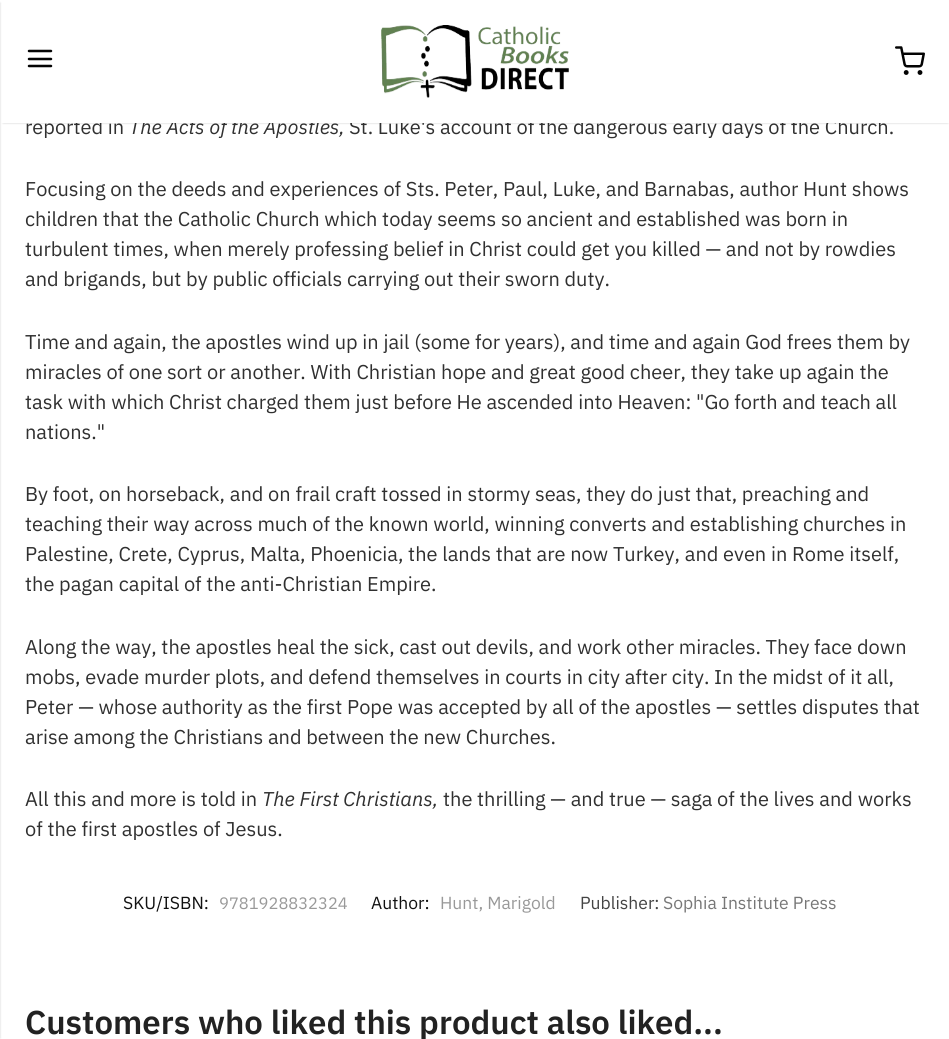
#include <cairo.h>
#include <math.h>
#include <stddef.h>

typedef struct { double x, y; const char *s; } line_t;

static void ink(cairo_t *ctx, unsigned color) {
    cairo_set_source_rgb(ctx, (color >> 16) / 255.0, (color >> 8 & 255) / 255.0, (color & 255) / 255.0);
}

static void round_path(cairo_t *ctx, double x, double y, double w, double h, double r) {
    cairo_new_sub_path(ctx);
    cairo_arc(ctx, x + w - r, y + h - r, r, 0, M_PI / 2);
    cairo_arc(ctx, x + r, y + h - r, r, M_PI / 2, M_PI);
    cairo_arc(ctx, x + r, y + r, r, M_PI, 1.5 * M_PI);
    cairo_arc(ctx, x + w - r, y + r, r, 1.5 * M_PI, 2 * M_PI);
    cairo_close_path(ctx);
}

static void blur_box(cairo_t *ctx, double x, double y, double w, double h, double r, double blur, double alpha) {
    cairo_push_group_with_content(ctx, CAIRO_CONTENT_ALPHA);
    cairo_set_operator(ctx, CAIRO_OPERATOR_SOURCE);
    for (int i = 15; i >= -15 && fmin(w, h) + blur * i / 3 > 0; i -= 2) {
        double e = blur * i / 6;
        cairo_set_source_rgba(ctx, 0, 0, 0, alpha * erfc((i - 1) / 8.5) / 2);
        round_path(ctx, x - e, y - e, w + 2 * e, h + 2 * e, fmax(0, fmin(r + e + blur * .6, fmin(w, h) / 2 + e)));
        cairo_fill(ctx);
    }
    cairo_pattern_t *soft = cairo_pop_group(ctx);
    cairo_mask(ctx, soft);
    cairo_pattern_destroy(soft);
}

static void paste(cairo_t *ctx, const char *path, double x, double y, double w, double h) {
    cairo_surface_t *image = cairo_image_surface_create_from_png(path);
    cairo_save(ctx);
    cairo_set_source_surface(ctx, image, x, y);
    cairo_rectangle(ctx, x, y, w, h);
    cairo_fill(ctx);
    cairo_restore(ctx);
    cairo_surface_destroy(image);
}

int main(void) {
    cairo_surface_t *surface = cairo_image_surface_create(CAIRO_FORMAT_RGB24, 949, 1039);
    cairo_t *ctx = cairo_create(surface);
    cairo_font_options_t *options = cairo_font_options_create();
    cairo_font_options_set_hint_metrics(options, CAIRO_HINT_METRICS_OFF);
    cairo_font_options_set_hint_style(options, CAIRO_HINT_STYLE_NONE);
    cairo_set_font_options(ctx, options);
    cairo_set_miter_limit(ctx, 4);
    ink(ctx, 0xFFFFFF);
    cairo_paint(ctx);
    ink(ctx, 0x000000);
    blur_box(ctx, 3, 5, 945, 118, 0, 1, 0.2);
    cairo_select_font_face(ctx, "IBM Plex Sans", CAIRO_FONT_SLANT_NORMAL, CAIRO_FONT_WEIGHT_NORMAL);
    cairo_set_font_size(ctx, 20);
    ink(ctx, 0x303030);
    cairo_move_to(ctx, 25, 134);
    cairo_show_text(ctx, "reported in");
    cairo_select_font_face(ctx, "IBM Plex Sans", CAIRO_FONT_SLANT_ITALIC, CAIRO_FONT_WEIGHT_NORMAL);
    cairo_move_to(ctx, 129, 134);
    cairo_show_text(ctx, "The Acts of the Apostles,");
    cairo_select_font_face(ctx, "IBM Plex Sans", CAIRO_FONT_SLANT_NORMAL, CAIRO_FONT_WEIGHT_NORMAL);
    cairo_move_to(ctx, 349, 134);
    cairo_show_text(ctx, "St. Luke's account of the dangerous early days of the Church.");
    ink(ctx, 0xFFFFFF);
    cairo_rectangle(ctx, 1, 3, 948, 120);
    cairo_fill(ctx);
    ink(ctx, 0x000000);
    blur_box(ctx, -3, 3, 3, 1035, 0, 1, 0.2);
    cairo_new_path(ctx);
    cairo_move_to(ctx, 29, 59);
    cairo_line_to(ctx, 51, 59);
    cairo_move_to(ctx, 29, 51);
    cairo_line_to(ctx, 51, 51);
    cairo_move_to(ctx, 29, 66);
    cairo_line_to(ctx, 51, 66);
    ink(ctx, 0x030303);
    cairo_set_line_width(ctx, 2.5);
    cairo_set_line_cap(ctx, CAIRO_LINE_CAP_ROUND);
    cairo_set_line_join(ctx, CAIRO_LINE_JOIN_ROUND);
    cairo_stroke(ctx);
    paste(ctx, "media/1.png", 381, 25, 188, 73);
    paste(ctx, "media/2.png", 895, 46, 30, 29);
    ink(ctx, 0x303030);
    {
        static const line_t items[] = {
            {25, 196, "Focusing on the deeds and experiences of Sts. Peter, Paul, Luke, and Barnabas, author Hunt shows"},
            {25, 226, "children that the Catholic Church which today seems so ancient and established was born in"},
            {25, 256, "turbulent times, when merely professing belief in Christ could get you killed — and not by rowdies"},
            {25, 286, "and brigands, but by public officials carrying out their sworn duty."},
            {25, 349, "Time and again, the apostles wind up in jail (some for years), and time and again God frees them by"},
            {25, 379, "miracles of one sort or another. With Christian hope and great good cheer, they take up again the"},
            {25, 409, "task with which Christ charged them just before He ascended into Heaven: \"Go forth and teach all"},
            {25, 439, "nations.\""},
            {25, 501, "By foot, on horseback, and on frail craft tossed in stormy seas, they do just that, preaching and"},
            {25, 531, "teaching their way across much of the known world, winning converts and establishing churches in"},
            {25, 561, "Palestine, Crete, Cyprus, Malta, Phoenicia, the lands that are now Turkey, and even in Rome itself,"},
            {25, 591, "the pagan capital of the anti-Christian Empire."},
            {25, 654, "Along the way, the apostles heal the sick, cast out devils, and work other miracles. They face down"},
            {25, 684, "mobs, evade murder plots, and defend themselves in courts in city after city. In the midst of it all,"},
            {25, 714, "Peter — whose authority as the first Pope was accepted by all of the apostles — settles disputes that"},
            {25, 744, "arise among the Christians and between the new Churches."},
            {25, 806, "All this and more is told in"},
        };
        for (size_t i = 0; i < sizeof items / sizeof *items; i++) {
            cairo_move_to(ctx, items[i].x, items[i].y);
            cairo_show_text(ctx, items[i].s);
        }
    }
    cairo_select_font_face(ctx, "IBM Plex Sans", CAIRO_FONT_SLANT_ITALIC, CAIRO_FONT_WEIGHT_NORMAL);
    cairo_move_to(ctx, 262, 806);
    cairo_show_text(ctx, "The First Christians,");
    cairo_select_font_face(ctx, "IBM Plex Sans", CAIRO_FONT_SLANT_NORMAL, CAIRO_FONT_WEIGHT_NORMAL);
    cairo_move_to(ctx, 443, 806);
    cairo_show_text(ctx, "the thrilling — and true — saga of the lives and works");
    cairo_move_to(ctx, 25, 836);
    cairo_show_text(ctx, "of the first apostles of Jesus.");
    cairo_set_font_size(ctx, 17.5);
    ink(ctx, 0x111111);
    cairo_move_to(ctx, 123, 909);
    cairo_show_text(ctx, "SKU/ISBN:");
    cairo_set_font_size(ctx, 16.5);
    ink(ctx, 0x999999);
    cairo_move_to(ctx, 219, 909);
    cairo_show_text(ctx, "9781928832324");
    cairo_set_font_size(ctx, 17.5);
    ink(ctx, 0x111111);
    cairo_move_to(ctx, 371, 909);
    cairo_show_text(ctx, "Author:");
    ink(ctx, 0x999999);
    cairo_move_to(ctx, 440, 909);
    cairo_show_text(ctx, "Hunt, Marigold");
    ink(ctx, 0x444444);
    cairo_move_to(ctx, 580, 909);
    cairo_show_text(ctx, "Publisher:");
    ink(ctx, 0x777777);
    cairo_move_to(ctx, 663, 909);
    cairo_show_text(ctx, "Sophia Institute Press");
    cairo_select_font_face(ctx, "IBM Plex Sans SemiBold", CAIRO_FONT_SLANT_NORMAL, CAIRO_FONT_WEIGHT_NORMAL);
    cairo_set_font_size(ctx, 33);
    ink(ctx, 0x222222);
    cairo_move_to(ctx, 25, 1034);
    cairo_show_text(ctx, "Customers who liked this product also liked...");
    cairo_surface_write_to_png(surface, "image.png");
    cairo_font_options_destroy(options);
    cairo_destroy(ctx);
    cairo_surface_destroy(surface);
    return 0;
}
